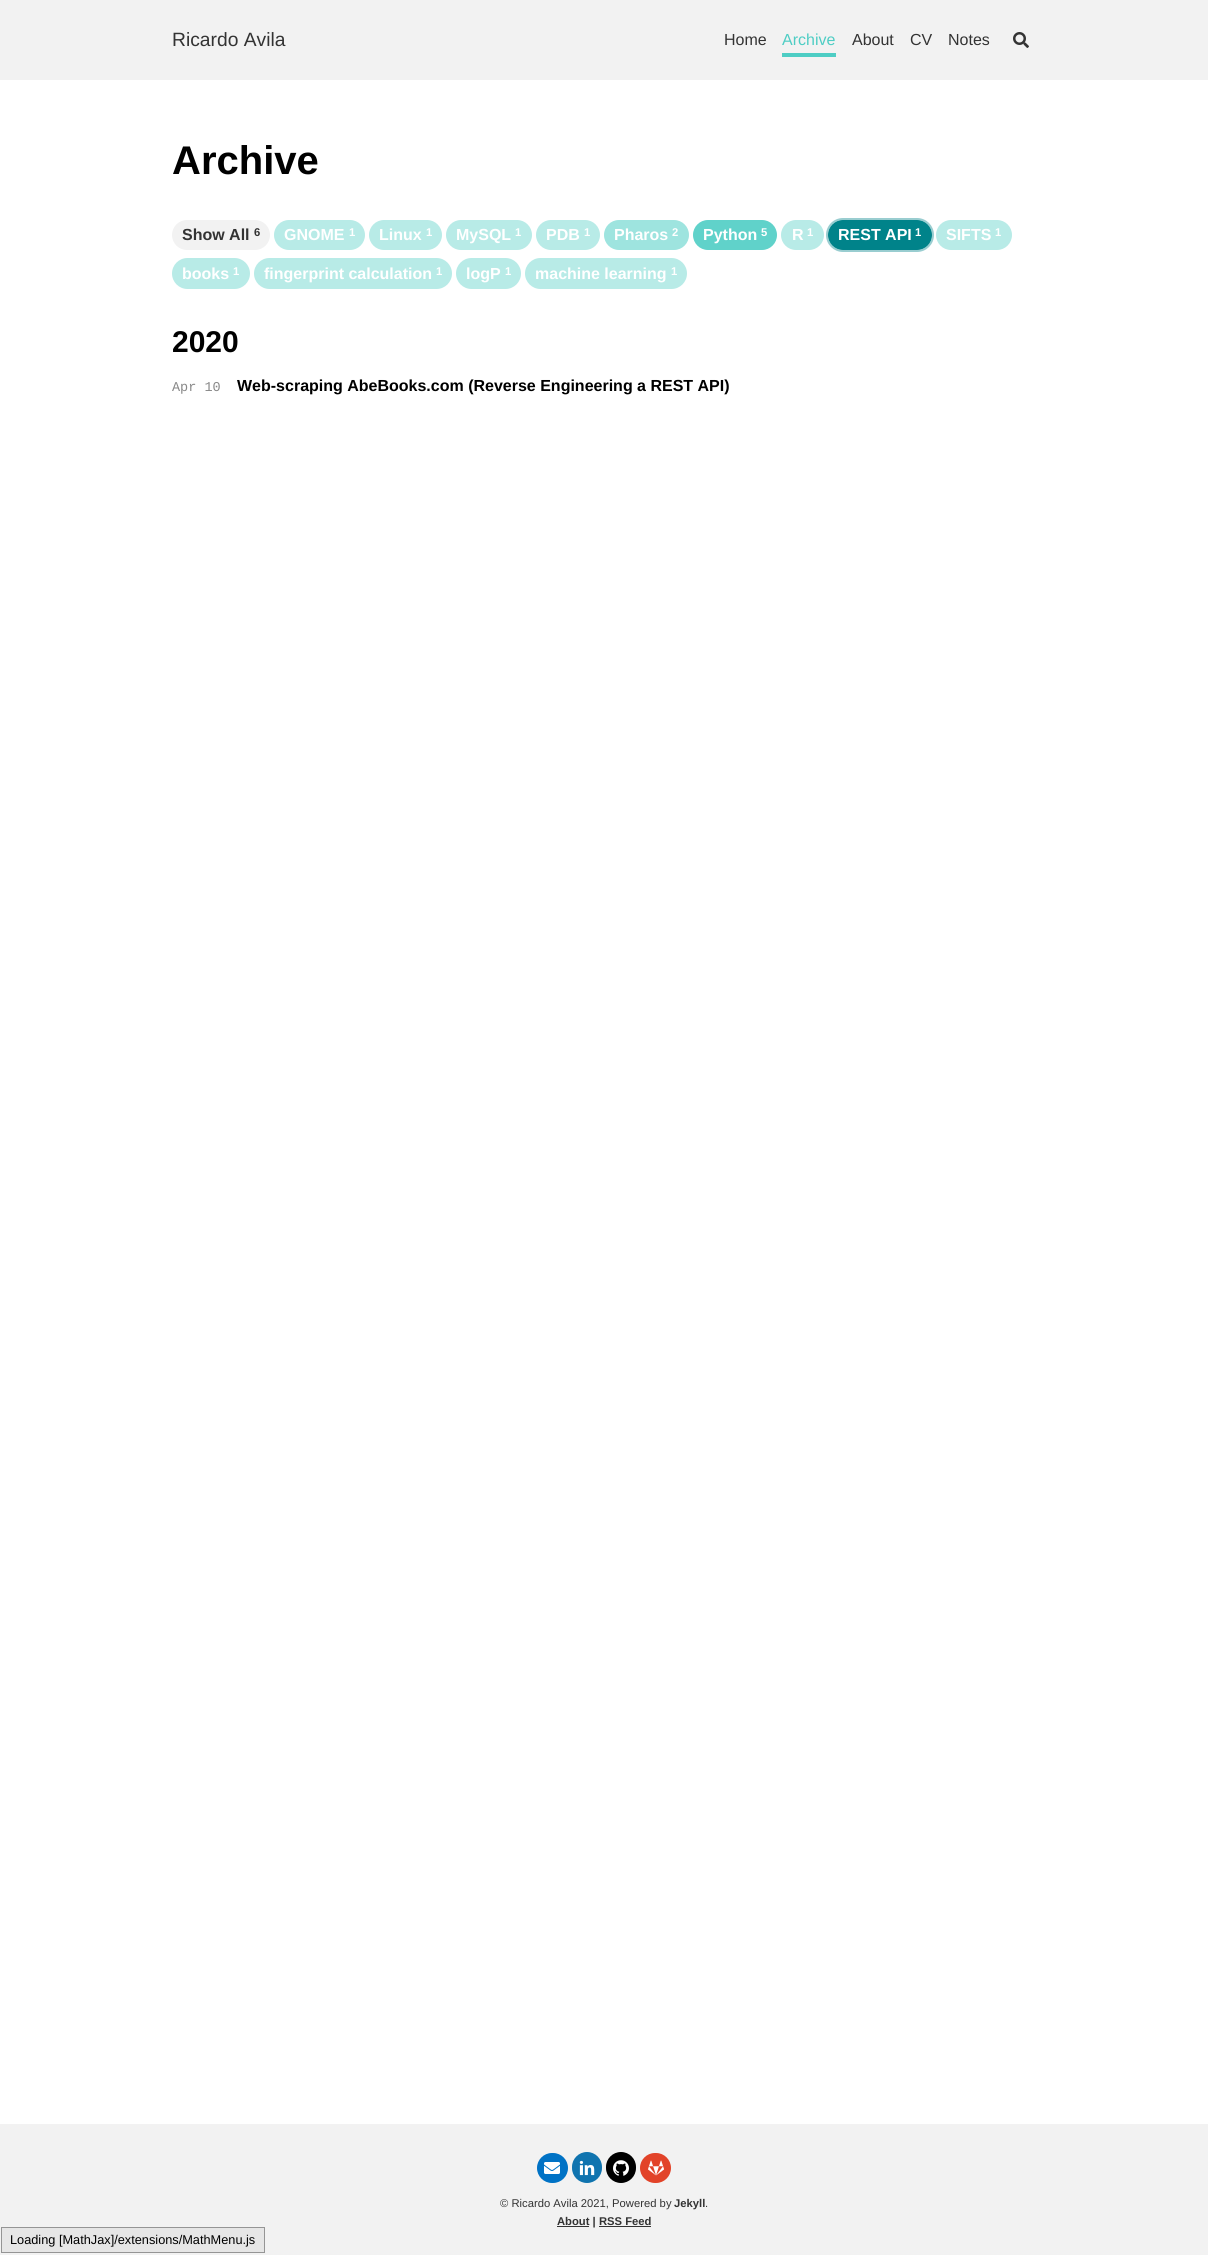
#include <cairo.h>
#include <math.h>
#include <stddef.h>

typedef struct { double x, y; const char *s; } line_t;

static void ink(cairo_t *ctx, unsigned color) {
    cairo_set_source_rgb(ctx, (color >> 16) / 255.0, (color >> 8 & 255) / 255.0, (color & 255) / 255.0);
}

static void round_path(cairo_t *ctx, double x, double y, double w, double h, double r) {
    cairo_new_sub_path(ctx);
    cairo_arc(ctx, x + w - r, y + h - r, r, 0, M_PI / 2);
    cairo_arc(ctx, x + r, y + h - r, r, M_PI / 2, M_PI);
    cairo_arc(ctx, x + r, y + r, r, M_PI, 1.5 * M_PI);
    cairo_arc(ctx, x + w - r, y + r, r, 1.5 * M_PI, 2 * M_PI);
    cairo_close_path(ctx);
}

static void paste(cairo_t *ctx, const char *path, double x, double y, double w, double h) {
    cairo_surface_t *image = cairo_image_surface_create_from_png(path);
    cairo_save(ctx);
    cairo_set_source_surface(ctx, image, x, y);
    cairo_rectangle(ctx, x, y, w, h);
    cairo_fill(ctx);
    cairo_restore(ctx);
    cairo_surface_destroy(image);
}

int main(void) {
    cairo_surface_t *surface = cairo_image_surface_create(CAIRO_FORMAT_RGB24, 1208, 2255);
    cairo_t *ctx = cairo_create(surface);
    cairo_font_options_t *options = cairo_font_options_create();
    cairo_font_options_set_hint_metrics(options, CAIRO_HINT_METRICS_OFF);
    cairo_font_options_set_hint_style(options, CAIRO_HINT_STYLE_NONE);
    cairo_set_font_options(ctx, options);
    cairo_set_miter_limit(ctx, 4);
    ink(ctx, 0xFFFFFF);
    cairo_paint(ctx);
    ink(ctx, 0xF2F2F2);
    cairo_rectangle(ctx, 0, 0, 1208, 80);
    cairo_fill(ctx);
    cairo_select_font_face(ctx, "Liberation Sans", CAIRO_FONT_SLANT_NORMAL, CAIRO_FONT_WEIGHT_NORMAL);
    cairo_set_font_size(ctx, 19.25);
    ink(ctx, 0x333333);
    cairo_move_to(ctx, 172, 46);
    cairo_show_text(ctx, "Ricardo Avila");
    cairo_set_font_size(ctx, 16);
    cairo_move_to(ctx, 724, 45);
    cairo_show_text(ctx, "Home");
    ink(ctx, 0x4ECDC4);
    cairo_move_to(ctx, 782, 45);
    cairo_show_text(ctx, "Archive");
    cairo_rectangle(ctx, 782, 53, 54, 4);
    cairo_fill(ctx);
    ink(ctx, 0x333333);
    {
        static const line_t items[] = {
            {852, 45, "About"},
            {910, 45, "CV"},
            {948, 45, "Notes"},
        };
        for (size_t i = 0; i < sizeof items / sizeof *items; i++) {
            cairo_move_to(ctx, items[i].x, items[i].y);
            cairo_show_text(ctx, items[i].s);
        }
    }
    paste(ctx, "media/1.png", 1013, 32, 16, 16);
    cairo_select_font_face(ctx, "Liberation Sans", CAIRO_FONT_SLANT_NORMAL, CAIRO_FONT_WEIGHT_BOLD);
    cairo_set_font_size(ctx, 40);
    ink(ctx, 0x000000);
    cairo_move_to(ctx, 172, 174);
    cairo_show_text(ctx, "Archive");
    ink(ctx, 0xF2F2F2);
    round_path(ctx, 172, 220, 98, 30, 15);
    cairo_fill(ctx);
    cairo_set_font_size(ctx, 16);
    ink(ctx, 0x333333);
    cairo_move_to(ctx, 182, 240);
    cairo_show_text(ctx, "Show All");
    cairo_set_font_size(ctx, 11.25);
    cairo_move_to(ctx, 254, 236);
    cairo_show_text(ctx, "6");
    ink(ctx, 0xB8EBE7);
    round_path(ctx, 274, 220, 91, 30, 15);
    cairo_fill(ctx);
    cairo_set_font_size(ctx, 16);
    ink(ctx, 0xFFFFFF);
    cairo_move_to(ctx, 284, 240);
    cairo_show_text(ctx, "GNOME");
    cairo_set_font_size(ctx, 11.25);
    cairo_move_to(ctx, 349, 236);
    cairo_show_text(ctx, "1");
    ink(ctx, 0xB8EBE7);
    round_path(ctx, 369, 220, 73, 30, 15);
    cairo_fill(ctx);
    cairo_set_font_size(ctx, 16);
    ink(ctx, 0xFFFFFF);
    cairo_move_to(ctx, 379, 240);
    cairo_show_text(ctx, "Linux");
    cairo_set_font_size(ctx, 11.25);
    cairo_move_to(ctx, 426, 236);
    cairo_show_text(ctx, "1");
    ink(ctx, 0xB8EBE7);
    round_path(ctx, 446, 220, 86, 30, 15);
    cairo_fill(ctx);
    cairo_set_font_size(ctx, 16);
    ink(ctx, 0xFFFFFF);
    cairo_move_to(ctx, 456, 240);
    cairo_show_text(ctx, "MySQL");
    cairo_set_font_size(ctx, 11.25);
    cairo_move_to(ctx, 515, 236);
    cairo_show_text(ctx, "1");
    ink(ctx, 0xB8EBE7);
    round_path(ctx, 536, 220, 64, 30, 15);
    cairo_fill(ctx);
    cairo_set_font_size(ctx, 16);
    ink(ctx, 0xFFFFFF);
    cairo_move_to(ctx, 546, 240);
    cairo_show_text(ctx, "PDB");
    cairo_set_font_size(ctx, 11.25);
    cairo_move_to(ctx, 584, 236);
    cairo_show_text(ctx, "1");
    ink(ctx, 0x9EE4DF);
    round_path(ctx, 604, 220, 85, 30, 15);
    cairo_fill(ctx);
    cairo_set_font_size(ctx, 16);
    ink(ctx, 0xFFFFFF);
    cairo_move_to(ctx, 614, 240);
    cairo_show_text(ctx, "Pharos");
    cairo_set_font_size(ctx, 11.25);
    cairo_move_to(ctx, 672, 236);
    cairo_show_text(ctx, "2");
    ink(ctx, 0x60D2CA);
    round_path(ctx, 693, 220, 84, 30, 15);
    cairo_fill(ctx);
    cairo_set_font_size(ctx, 16);
    ink(ctx, 0xFFFFFF);
    cairo_move_to(ctx, 703, 240);
    cairo_show_text(ctx, "Python");
    cairo_set_font_size(ctx, 11.25);
    cairo_move_to(ctx, 761, 236);
    cairo_show_text(ctx, "5");
    ink(ctx, 0xB8EBE7);
    round_path(ctx, 781, 220, 43, 30, 15);
    cairo_fill(ctx);
    cairo_set_font_size(ctx, 16);
    ink(ctx, 0xFFFFFF);
    cairo_move_to(ctx, 792, 240);
    cairo_show_text(ctx, "R");
    cairo_set_font_size(ctx, 11.25);
    cairo_move_to(ctx, 807, 236);
    cairo_show_text(ctx, "1");
    round_path(ctx, 827, 219, 106, 32, 16);
    ink(ctx, 0x99CDD0);
    cairo_stroke(ctx);
    ink(ctx, 0x00838A);
    round_path(ctx, 828, 220, 104, 30, 15);
    cairo_fill(ctx);
    cairo_set_font_size(ctx, 16);
    ink(ctx, 0xFFFFFF);
    cairo_move_to(ctx, 838, 240);
    cairo_show_text(ctx, "REST API");
    cairo_set_font_size(ctx, 11.25);
    cairo_move_to(ctx, 915, 236);
    cairo_show_text(ctx, "1");
    ink(ctx, 0xB8EBE7);
    round_path(ctx, 936, 220, 76, 30, 15);
    cairo_fill(ctx);
    cairo_set_font_size(ctx, 16);
    ink(ctx, 0xFFFFFF);
    cairo_move_to(ctx, 946, 240);
    cairo_show_text(ctx, "SIFTS");
    cairo_set_font_size(ctx, 11.25);
    cairo_move_to(ctx, 995, 236);
    cairo_show_text(ctx, "1");
    ink(ctx, 0xB8EBE7);
    round_path(ctx, 172, 258, 78, 31, 15.5);
    cairo_fill(ctx);
    cairo_set_font_size(ctx, 16);
    ink(ctx, 0xFFFFFF);
    cairo_move_to(ctx, 182, 279);
    cairo_show_text(ctx, "books");
    cairo_set_font_size(ctx, 11.25);
    cairo_move_to(ctx, 233, 275);
    cairo_show_text(ctx, "1");
    ink(ctx, 0xB8EBE7);
    round_path(ctx, 254, 258, 198, 31, 15.5);
    cairo_fill(ctx);
    cairo_set_font_size(ctx, 16);
    ink(ctx, 0xFFFFFF);
    cairo_move_to(ctx, 264, 279);
    cairo_show_text(ctx, "fingerprint calculation");
    cairo_set_font_size(ctx, 11.25);
    cairo_move_to(ctx, 436, 275);
    cairo_show_text(ctx, "1");
    ink(ctx, 0xB8EBE7);
    round_path(ctx, 456, 258, 65, 31, 15.5);
    cairo_fill(ctx);
    cairo_set_font_size(ctx, 16);
    ink(ctx, 0xFFFFFF);
    cairo_move_to(ctx, 466, 279);
    cairo_show_text(ctx, "logP");
    cairo_set_font_size(ctx, 11.25);
    cairo_move_to(ctx, 505, 275);
    cairo_show_text(ctx, "1");
    ink(ctx, 0xB8EBE7);
    round_path(ctx, 525, 258, 162, 31, 15.5);
    cairo_fill(ctx);
    cairo_set_font_size(ctx, 16);
    ink(ctx, 0xFFFFFF);
    cairo_move_to(ctx, 535, 279);
    cairo_show_text(ctx, "machine learning");
    cairo_set_font_size(ctx, 11.25);
    cairo_move_to(ctx, 671, 275);
    cairo_show_text(ctx, "1");
    cairo_set_font_size(ctx, 30);
    ink(ctx, 0x000000);
    cairo_move_to(ctx, 172, 352);
    cairo_show_text(ctx, "2020");
    cairo_select_font_face(ctx, "Liberation Mono", CAIRO_FONT_SLANT_NORMAL, CAIRO_FONT_WEIGHT_NORMAL);
    cairo_set_font_size(ctx, 13.5);
    ink(ctx, 0x888888);
    cairo_move_to(ctx, 172, 391);
    cairo_show_text(ctx, "Apr 10");
    cairo_select_font_face(ctx, "Liberation Sans", CAIRO_FONT_SLANT_NORMAL, CAIRO_FONT_WEIGHT_BOLD);
    cairo_set_font_size(ctx, 16);
    ink(ctx, 0x000000);
    cairo_move_to(ctx, 237, 391);
    cairo_show_text(ctx, "Web-scraping AbeBooks.com (Reverse Engineering a REST API)");
    ink(ctx, 0xF2F2F2);
    cairo_rectangle(ctx, 0, 2124, 1208, 131);
    cairo_fill(ctx);
    ink(ctx, 0x0072C5);
    round_path(ctx, 537, 2153, 31, 30, 15);
    cairo_fill(ctx);
    paste(ctx, "media/2.png", 544, 2162, 16, 12);
    ink(ctx, 0x1074AF);
    round_path(ctx, 572, 2152, 30, 31, 15);
    cairo_fill(ctx);
    paste(ctx, "media/3.png", 579, 2160, 16, 16);
    ink(ctx, 0x000000);
    round_path(ctx, 606, 2152, 30, 31, 15);
    cairo_fill(ctx);
    paste(ctx, "media/4.png", 613, 2160, 16, 16);
    ink(ctx, 0xE24329);
    round_path(ctx, 640, 2153, 31, 30, 15);
    cairo_fill(ctx);
    paste(ctx, "media/5.png", 648, 2160, 16, 16);
    cairo_select_font_face(ctx, "Liberation Sans", CAIRO_FONT_SLANT_NORMAL, CAIRO_FONT_WEIGHT_NORMAL);
    cairo_set_font_size(ctx, 11.25);
    ink(ctx, 0x333333);
    cairo_move_to(ctx, 500, 2207);
    cairo_show_text(ctx, "© Ricardo Avila 2021, Powered by");
    cairo_select_font_face(ctx, "Liberation Sans", CAIRO_FONT_SLANT_NORMAL, CAIRO_FONT_WEIGHT_BOLD);
    cairo_move_to(ctx, 674, 2207);
    cairo_show_text(ctx, "Jekyll");
    cairo_select_font_face(ctx, "Liberation Sans", CAIRO_FONT_SLANT_NORMAL, CAIRO_FONT_WEIGHT_NORMAL);
    cairo_move_to(ctx, 705, 2207);
    cairo_show_text(ctx, ".");
    cairo_rectangle(ctx, 557, 2226, 32, 1);
    cairo_fill(ctx);
    cairo_select_font_face(ctx, "Liberation Sans", CAIRO_FONT_SLANT_NORMAL, CAIRO_FONT_WEIGHT_BOLD);
    cairo_move_to(ctx, 557, 2225);
    cairo_show_text(ctx, "About | RSS Feed");
    cairo_rectangle(ctx, 599, 2226, 52, 1);
    cairo_fill(ctx);
    ink(ctx, 0xE6E6E6);
    cairo_rectangle(ctx, 1.5, 2227.5, 263, 25);
    cairo_fill_preserve(ctx);
    ink(ctx, 0x959595);
    cairo_set_line_width(ctx, 1);
    cairo_stroke(ctx);
    cairo_select_font_face(ctx, "Liberation Sans", CAIRO_FONT_SLANT_NORMAL, CAIRO_FONT_WEIGHT_NORMAL);
    cairo_set_font_size(ctx, 12.75);
    ink(ctx, 0x000000);
    cairo_move_to(ctx, 10, 2244);
    cairo_show_text(ctx, "Loading [MathJax]/extensions/MathMenu.js");
    cairo_surface_write_to_png(surface, "image.png");
    cairo_font_options_destroy(options);
    cairo_destroy(ctx);
    cairo_surface_destroy(surface);
    return 0;
}
